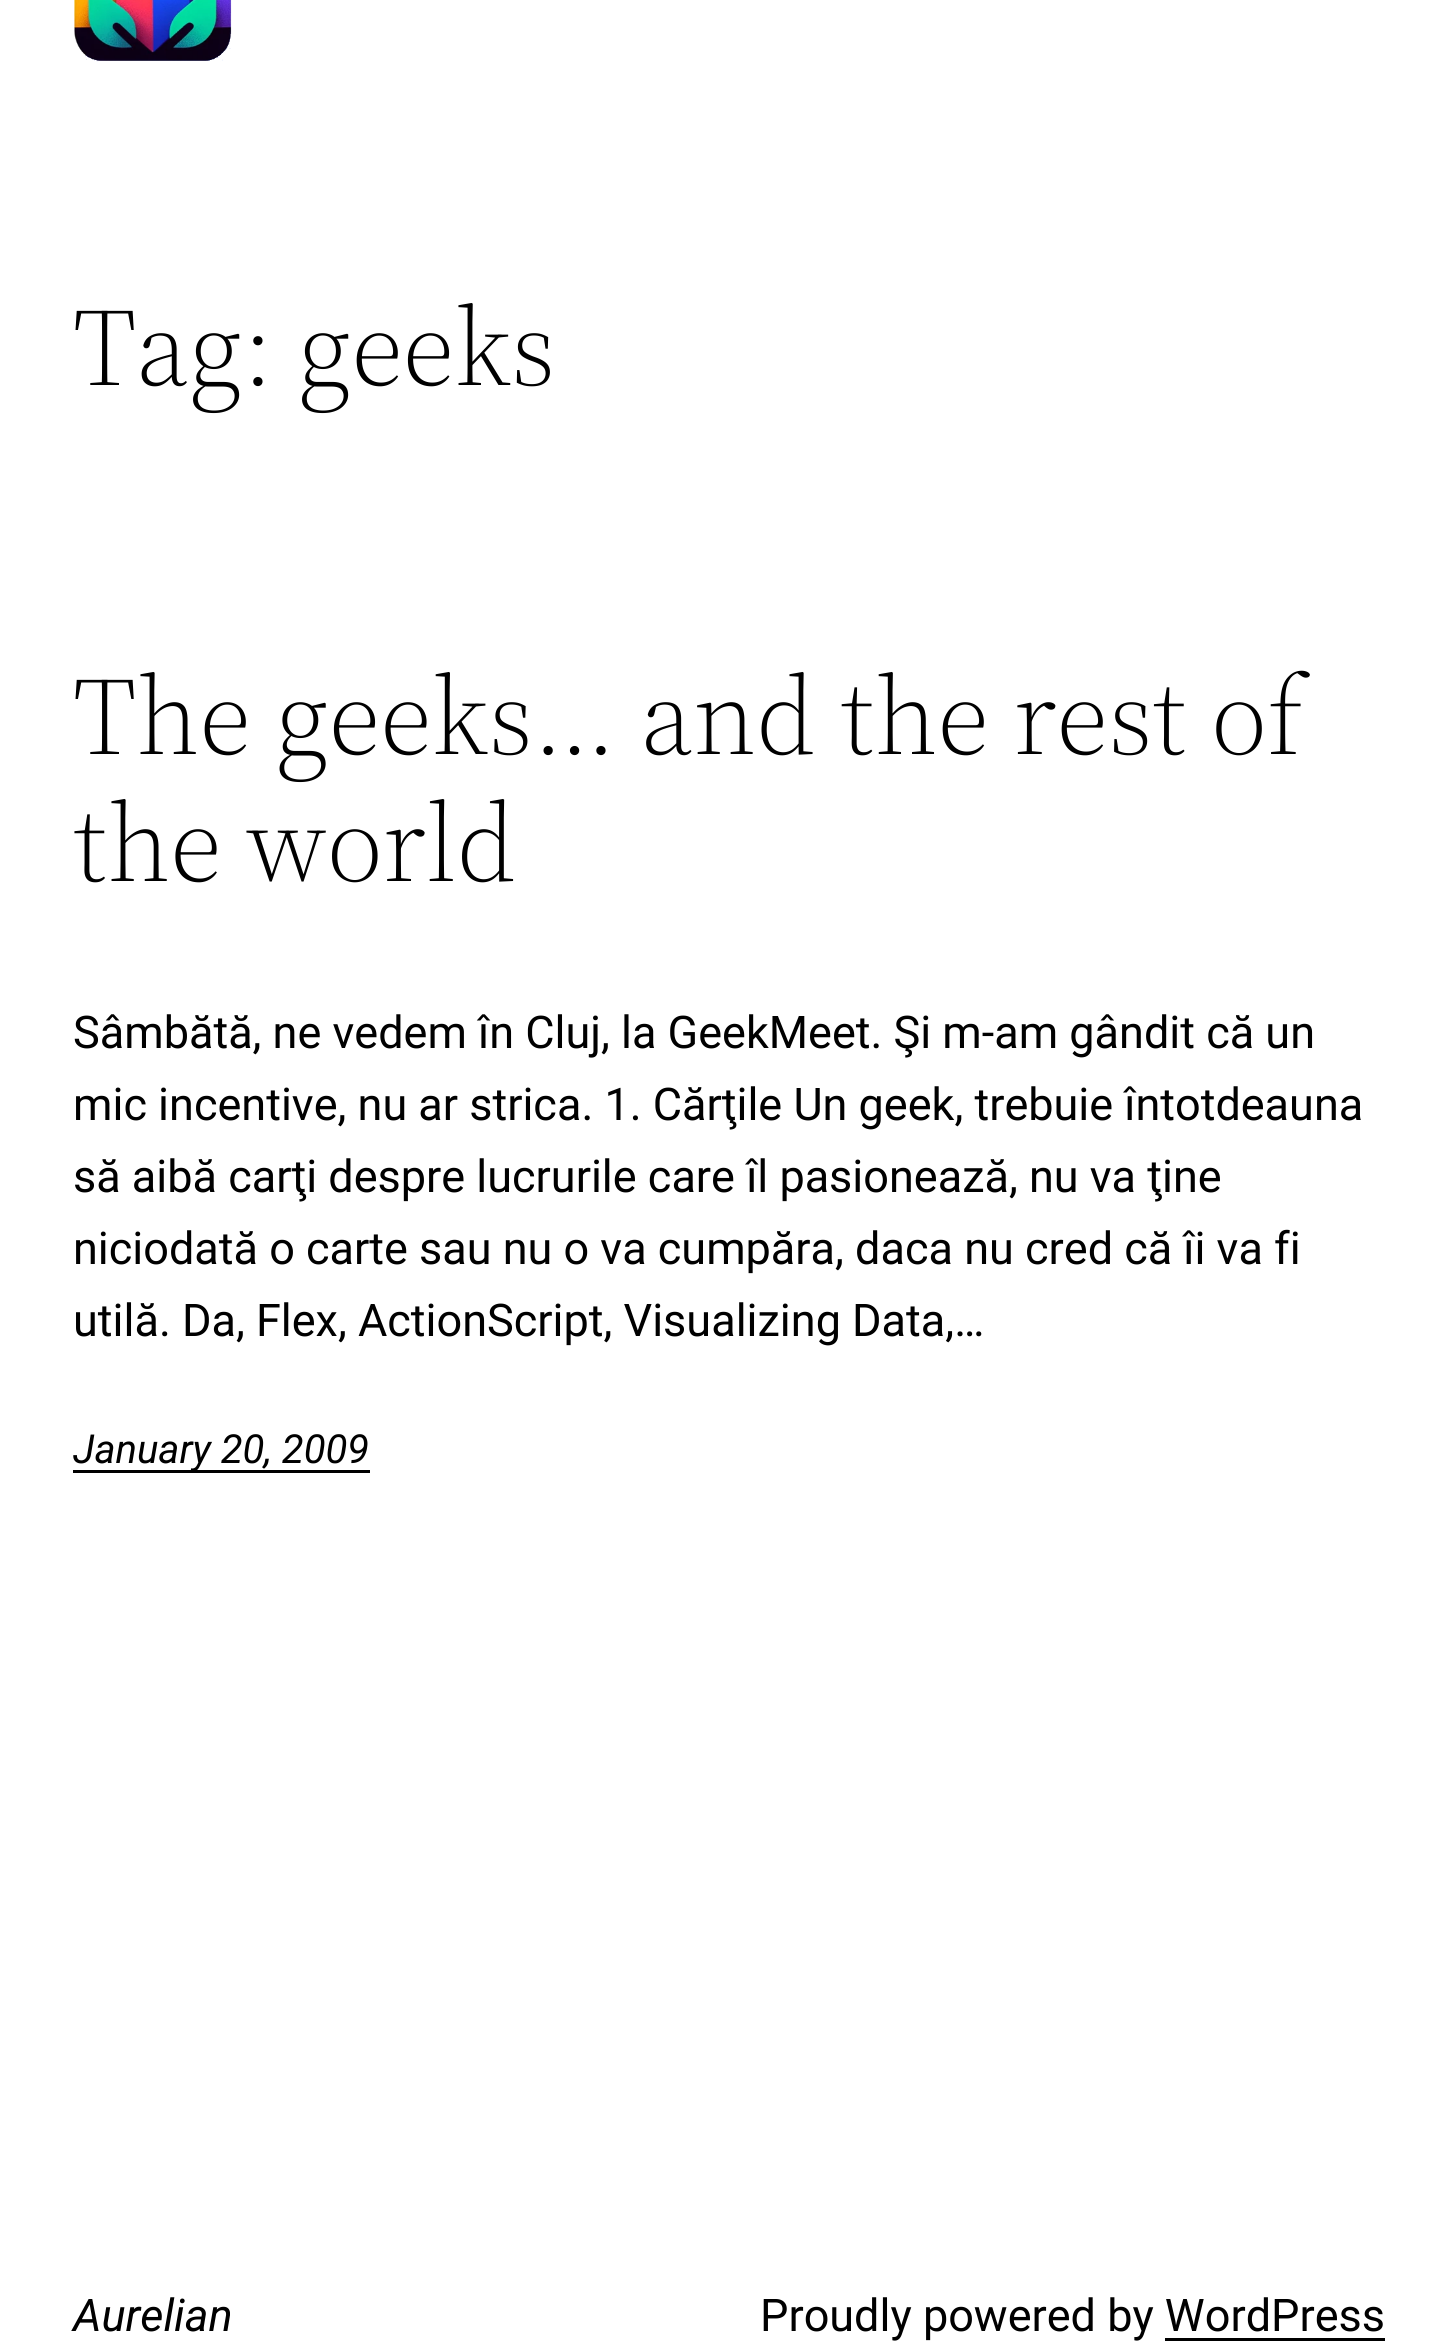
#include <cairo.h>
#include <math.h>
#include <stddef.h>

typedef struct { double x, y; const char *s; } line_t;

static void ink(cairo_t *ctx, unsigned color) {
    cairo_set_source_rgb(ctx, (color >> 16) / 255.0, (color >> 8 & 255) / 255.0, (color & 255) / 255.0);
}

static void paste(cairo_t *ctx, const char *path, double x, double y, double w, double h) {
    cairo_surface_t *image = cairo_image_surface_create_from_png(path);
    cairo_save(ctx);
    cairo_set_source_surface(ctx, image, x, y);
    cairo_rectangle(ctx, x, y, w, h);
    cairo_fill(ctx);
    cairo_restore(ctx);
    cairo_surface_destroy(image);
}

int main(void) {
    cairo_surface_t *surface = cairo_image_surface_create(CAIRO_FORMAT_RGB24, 1456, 2341);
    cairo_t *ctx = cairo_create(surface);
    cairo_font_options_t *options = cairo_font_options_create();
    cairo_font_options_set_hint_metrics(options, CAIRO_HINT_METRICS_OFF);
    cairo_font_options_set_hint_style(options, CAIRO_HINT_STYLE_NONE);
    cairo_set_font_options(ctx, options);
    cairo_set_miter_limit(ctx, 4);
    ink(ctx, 0xFFFFFF);
    cairo_paint(ctx);
    paste(ctx, "media/1.png", 74, 0, 158, 62);
    cairo_select_font_face(ctx, "Source Serif 4 Light", CAIRO_FONT_SLANT_NORMAL, CAIRO_FONT_WEIGHT_NORMAL);
    cairo_set_font_size(ctx, 110);
    ink(ctx, 0x000000);
    {
        static const line_t items[] = {
            {73, 385, "Tag: geeks"},
            {73, 754, "The geeks… and the rest of"},
            {73, 881, "the world"},
        };
        for (size_t i = 0; i < sizeof items / sizeof *items; i++) {
            cairo_move_to(ctx, items[i].x, items[i].y);
            cairo_show_text(ctx, items[i].s);
        }
    }
    cairo_select_font_face(ctx, "Roboto", CAIRO_FONT_SLANT_NORMAL, CAIRO_FONT_WEIGHT_NORMAL);
    cairo_set_font_size(ctx, 45);
    {
        static const line_t items[] = {
            {73, 1048, "Sâmbătă, ne vedem în Cluj, la GeekMeet. Şi m-am gândit că un"},
            {73, 1120, "mic incentive, nu ar strica. 1. Cărţile Un geek, trebuie întotdeauna"},
            {73, 1192, "să aibă carţi despre lucrurile care îl pasionează, nu va ţine"},
            {73, 1264, "niciodată o carte sau nu o va cumpăra, daca nu cred că îi va fi"},
            {73, 1336, "utilă. Da, Flex, ActionScript, Visualizing Data,…"},
        };
        for (size_t i = 0; i < sizeof items / sizeof *items; i++) {
            cairo_move_to(ctx, items[i].x, items[i].y);
            cairo_show_text(ctx, items[i].s);
        }
    }
    cairo_rectangle(ctx, 73, 1470, 297, 3);
    cairo_fill(ctx);
    cairo_select_font_face(ctx, "Roboto", CAIRO_FONT_SLANT_ITALIC, CAIRO_FONT_WEIGHT_NORMAL);
    cairo_set_font_size(ctx, 40);
    cairo_move_to(ctx, 73, 1463);
    cairo_show_text(ctx, "January 20, 2009");
    cairo_set_font_size(ctx, 45);
    cairo_move_to(ctx, 73, 2331);
    cairo_show_text(ctx, "Aurelian");
    cairo_select_font_face(ctx, "Roboto", CAIRO_FONT_SLANT_NORMAL, CAIRO_FONT_WEIGHT_NORMAL);
    cairo_move_to(ctx, 760, 2331);
    cairo_show_text(ctx, "Proudly powered by WordPress");
    cairo_rectangle(ctx, 1165, 2338, 220, 3);
    cairo_fill(ctx);
    cairo_surface_write_to_png(surface, "image.png");
    cairo_font_options_destroy(options);
    cairo_destroy(ctx);
    cairo_surface_destroy(surface);
    return 0;
}
